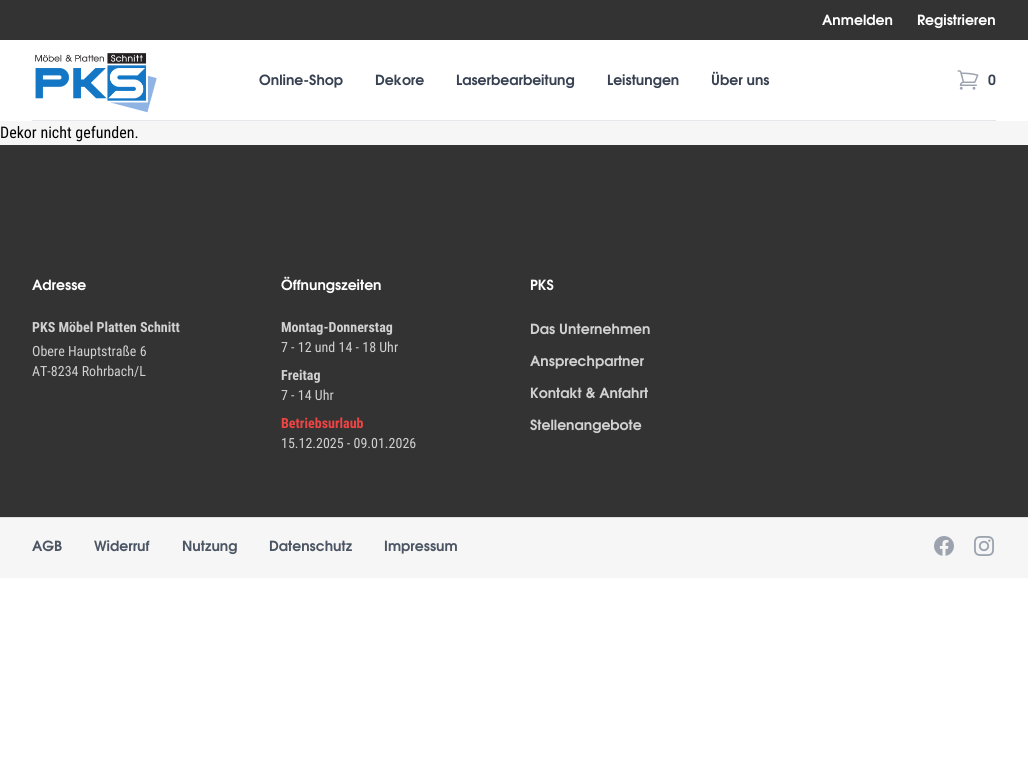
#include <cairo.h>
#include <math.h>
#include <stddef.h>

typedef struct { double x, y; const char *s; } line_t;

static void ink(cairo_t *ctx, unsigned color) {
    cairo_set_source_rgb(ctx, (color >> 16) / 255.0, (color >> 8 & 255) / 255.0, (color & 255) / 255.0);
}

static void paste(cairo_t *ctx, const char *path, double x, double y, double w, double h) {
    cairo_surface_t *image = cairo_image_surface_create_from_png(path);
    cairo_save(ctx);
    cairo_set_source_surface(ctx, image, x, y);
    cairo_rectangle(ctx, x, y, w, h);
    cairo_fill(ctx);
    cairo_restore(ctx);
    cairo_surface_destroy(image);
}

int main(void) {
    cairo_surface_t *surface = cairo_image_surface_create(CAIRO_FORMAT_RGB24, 1028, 759);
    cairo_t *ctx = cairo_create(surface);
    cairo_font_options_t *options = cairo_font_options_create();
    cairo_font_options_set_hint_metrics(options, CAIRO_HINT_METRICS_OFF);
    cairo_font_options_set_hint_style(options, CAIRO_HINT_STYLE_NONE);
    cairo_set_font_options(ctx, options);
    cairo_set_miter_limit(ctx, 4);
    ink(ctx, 0xFFFFFF);
    cairo_paint(ctx);
    ink(ctx, 0x333333);
    cairo_rectangle(ctx, 0, 0, 1028, 40);
    cairo_fill(ctx);
    cairo_select_font_face(ctx, "TeX Gyre Adventor", CAIRO_FONT_SLANT_NORMAL, CAIRO_FONT_WEIGHT_BOLD);
    cairo_set_font_size(ctx, 14);
    ink(ctx, 0xFFFFFF);
    cairo_move_to(ctx, 822, 25);
    cairo_show_text(ctx, "Anmelden");
    cairo_move_to(ctx, 917, 25);
    cairo_show_text(ctx, "Registrieren");
    ink(ctx, 0xE5E7EB);
    cairo_rectangle(ctx, 32, 120, 964, 1);
    cairo_fill(ctx);
    paste(ctx, "media/1.png", 35, 53, 122, 60);
    ink(ctx, 0x374151);
    {
        static const line_t items[] = {
            {259, 85, "Online-Shop"},
            {375, 85, "Dekore"},
            {456, 85, "Laserbearbeitung"},
            {607, 85, "Leistungen"},
            {711, 85, "Über uns"},
        };
        for (size_t i = 0; i < sizeof items / sizeof *items; i++) {
            cairo_move_to(ctx, items[i].x, items[i].y);
            cairo_show_text(ctx, items[i].s);
        }
    }
    paste(ctx, "media/2.png", 957, 70, 22, 20);
    cairo_move_to(ctx, 988, 85);
    cairo_show_text(ctx, "0");
    ink(ctx, 0xF6F6F6);
    cairo_rectangle(ctx, 0, 121, 1028, 24);
    cairo_fill(ctx);
    cairo_select_font_face(ctx, "Roboto Condensed", CAIRO_FONT_SLANT_NORMAL, CAIRO_FONT_WEIGHT_NORMAL);
    cairo_set_font_size(ctx, 16);
    ink(ctx, 0x000000);
    cairo_move_to(ctx, 0, 138);
    cairo_show_text(ctx, "Dekor nicht gefunden.");
    ink(ctx, 0x333333);
    cairo_rectangle(ctx, 0, 145, 1028, 372);
    cairo_fill(ctx);
    cairo_select_font_face(ctx, "TeX Gyre Adventor", CAIRO_FONT_SLANT_NORMAL, CAIRO_FONT_WEIGHT_BOLD);
    cairo_set_font_size(ctx, 14);
    ink(ctx, 0xFFFFFF);
    cairo_move_to(ctx, 32, 290);
    cairo_show_text(ctx, "Adresse");
    cairo_select_font_face(ctx, "Roboto Condensed", CAIRO_FONT_SLANT_NORMAL, CAIRO_FONT_WEIGHT_BOLD);
    ink(ctx, 0xD1D1D1);
    cairo_move_to(ctx, 32, 332);
    cairo_show_text(ctx, "PKS Möbel Platten Schnitt");
    cairo_select_font_face(ctx, "Roboto Condensed", CAIRO_FONT_SLANT_NORMAL, CAIRO_FONT_WEIGHT_NORMAL);
    cairo_move_to(ctx, 32, 356);
    cairo_show_text(ctx, "Obere Hauptstraße 6");
    cairo_move_to(ctx, 32, 376);
    cairo_show_text(ctx, "AT-8234 Rohrbach/L");
    cairo_select_font_face(ctx, "TeX Gyre Adventor", CAIRO_FONT_SLANT_NORMAL, CAIRO_FONT_WEIGHT_BOLD);
    ink(ctx, 0xFFFFFF);
    cairo_move_to(ctx, 281, 290);
    cairo_show_text(ctx, "Öffnungszeiten");
    cairo_select_font_face(ctx, "Roboto Condensed", CAIRO_FONT_SLANT_NORMAL, CAIRO_FONT_WEIGHT_BOLD);
    ink(ctx, 0xD1D1D1);
    cairo_move_to(ctx, 281, 332);
    cairo_show_text(ctx, "Montag-Donnerstag");
    cairo_select_font_face(ctx, "Roboto Condensed", CAIRO_FONT_SLANT_NORMAL, CAIRO_FONT_WEIGHT_NORMAL);
    cairo_move_to(ctx, 281, 352);
    cairo_show_text(ctx, "7 - 12 und 14 - 18 Uhr");
    cairo_select_font_face(ctx, "Roboto Condensed", CAIRO_FONT_SLANT_NORMAL, CAIRO_FONT_WEIGHT_BOLD);
    cairo_move_to(ctx, 281, 380);
    cairo_show_text(ctx, "Freitag");
    cairo_select_font_face(ctx, "Roboto Condensed", CAIRO_FONT_SLANT_NORMAL, CAIRO_FONT_WEIGHT_NORMAL);
    cairo_move_to(ctx, 281, 400);
    cairo_show_text(ctx, "7 - 14 Uhr");
    cairo_select_font_face(ctx, "Roboto Condensed", CAIRO_FONT_SLANT_NORMAL, CAIRO_FONT_WEIGHT_BOLD);
    ink(ctx, 0xEF4444);
    cairo_move_to(ctx, 281, 428);
    cairo_show_text(ctx, "Betriebsurlaub");
    cairo_select_font_face(ctx, "Roboto Condensed", CAIRO_FONT_SLANT_NORMAL, CAIRO_FONT_WEIGHT_NORMAL);
    ink(ctx, 0xD1D1D1);
    cairo_move_to(ctx, 281, 448);
    cairo_show_text(ctx, "15.12.2025 - 09.01.2026");
    cairo_select_font_face(ctx, "TeX Gyre Adventor", CAIRO_FONT_SLANT_NORMAL, CAIRO_FONT_WEIGHT_BOLD);
    ink(ctx, 0xFFFFFF);
    cairo_move_to(ctx, 530, 290);
    cairo_show_text(ctx, "PKS");
    ink(ctx, 0xD1D1D1);
    {
        static const line_t items[] = {
            {530, 334, "Das Unternehmen"},
            {530, 366, "Ansprechpartner"},
            {530, 398, "Kontakt & Anfahrt"},
            {530, 430, "Stellenangebote"},
        };
        for (size_t i = 0; i < sizeof items / sizeof *items; i++) {
            cairo_move_to(ctx, items[i].x, items[i].y);
            cairo_show_text(ctx, items[i].s);
        }
    }
    ink(ctx, 0xF6F6F6);
    cairo_rectangle(ctx, 0, 518, 1028, 60);
    cairo_fill(ctx);
    ink(ctx, 0xDFE0E1);
    cairo_rectangle(ctx, 0, 517, 1028, 1);
    cairo_fill(ctx);
    ink(ctx, 0x4B5563);
    {
        static const line_t items[] = {
            {32, 551, "AGB"},
            {94, 551, "Widerruf"},
            {182, 551, "Nutzung"},
            {269, 551, "Datenschutz"},
            {384, 551, "Impressum"},
        };
        for (size_t i = 0; i < sizeof items / sizeof *items; i++) {
            cairo_move_to(ctx, items[i].x, items[i].y);
            cairo_show_text(ctx, items[i].s);
        }
    }
    paste(ctx, "media/3.png", 934, 536, 20, 20);
    paste(ctx, "media/4.png", 974, 536, 20, 20);
    cairo_surface_write_to_png(surface, "image.png");
    cairo_font_options_destroy(options);
    cairo_destroy(ctx);
    cairo_surface_destroy(surface);
    return 0;
}
